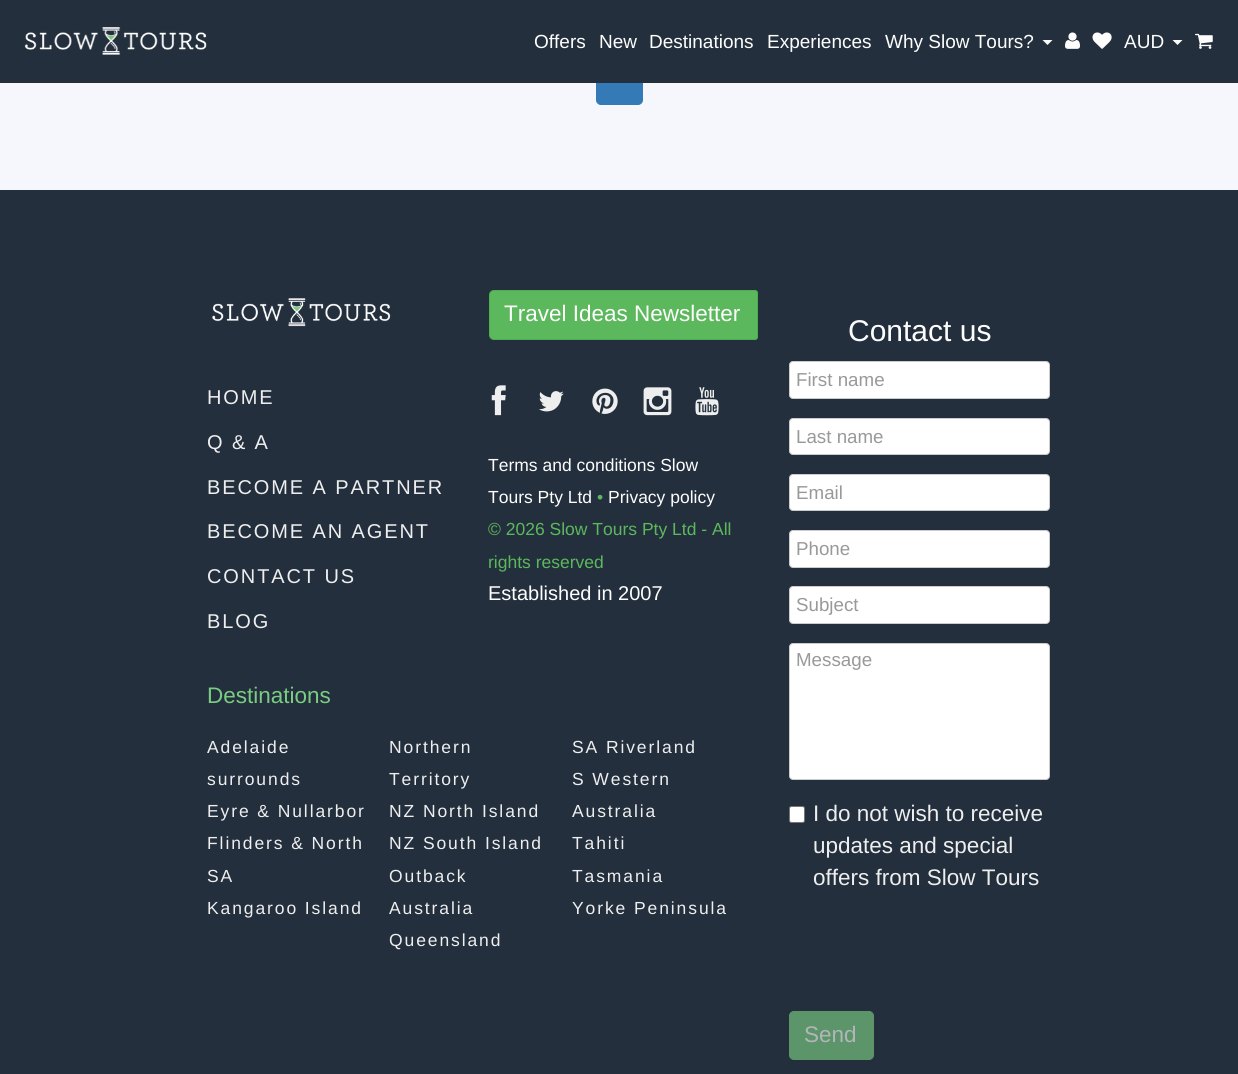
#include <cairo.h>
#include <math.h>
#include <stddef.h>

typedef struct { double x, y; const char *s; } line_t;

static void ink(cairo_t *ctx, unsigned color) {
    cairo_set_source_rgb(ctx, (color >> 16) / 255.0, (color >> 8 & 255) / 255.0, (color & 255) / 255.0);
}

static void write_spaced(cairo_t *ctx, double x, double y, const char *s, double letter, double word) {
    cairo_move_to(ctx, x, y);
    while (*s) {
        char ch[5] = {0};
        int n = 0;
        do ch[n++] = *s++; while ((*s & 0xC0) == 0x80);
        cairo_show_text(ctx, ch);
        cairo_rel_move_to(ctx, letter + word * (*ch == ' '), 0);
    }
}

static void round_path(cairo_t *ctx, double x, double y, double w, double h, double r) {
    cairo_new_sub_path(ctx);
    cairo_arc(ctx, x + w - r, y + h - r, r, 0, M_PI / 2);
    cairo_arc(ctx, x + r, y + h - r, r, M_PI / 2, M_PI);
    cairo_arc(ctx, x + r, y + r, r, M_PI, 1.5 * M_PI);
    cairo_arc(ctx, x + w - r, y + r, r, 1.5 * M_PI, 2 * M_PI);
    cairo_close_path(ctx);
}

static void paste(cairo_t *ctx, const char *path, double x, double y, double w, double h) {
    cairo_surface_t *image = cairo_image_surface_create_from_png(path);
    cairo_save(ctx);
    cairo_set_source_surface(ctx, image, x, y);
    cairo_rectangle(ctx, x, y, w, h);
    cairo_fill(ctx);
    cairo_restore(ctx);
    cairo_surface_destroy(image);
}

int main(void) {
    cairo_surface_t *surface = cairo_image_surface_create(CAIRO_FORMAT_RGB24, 1238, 1074);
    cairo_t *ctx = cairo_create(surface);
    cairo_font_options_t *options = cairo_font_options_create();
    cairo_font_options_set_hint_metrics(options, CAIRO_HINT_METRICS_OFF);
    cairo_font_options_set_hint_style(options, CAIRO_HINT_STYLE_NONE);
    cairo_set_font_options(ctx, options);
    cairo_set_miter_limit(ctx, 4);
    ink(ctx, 0xF5F7FC);
    cairo_paint(ctx);
    ink(ctx, 0x337AB7);
    round_path(ctx, 596.5, 56.5, 46, 48, 4.5);
    cairo_fill_preserve(ctx);
    cairo_set_line_width(ctx, 1);
    cairo_stroke(ctx);
    ink(ctx, 0x232F3D);
    cairo_rectangle(ctx, 0, 0, 1238, 83);
    cairo_fill(ctx);
    paste(ctx, "media/1.png", 24, 27, 183, 28);
    cairo_select_font_face(ctx, "Liberation Sans", CAIRO_FONT_SLANT_NORMAL, CAIRO_FONT_WEIGHT_NORMAL);
    cairo_set_font_size(ctx, 19);
    ink(ctx, 0xFDFDFD);
    {
        static const line_t items[] = {
            {534, 48, "Offers"},
            {599, 48, "New"},
            {649, 48, "Destinations"},
            {767, 48, "Experiences"},
            {885, 48, "Why Slow Tours?"},
        };
        for (size_t i = 0; i < sizeof items / sizeof *items; i++) {
            cairo_move_to(ctx, items[i].x, items[i].y);
            cairo_show_text(ctx, items[i].s);
        }
    }
    cairo_new_path(ctx);
    cairo_move_to(ctx, 1042.5, 40);
    cairo_line_to(ctx, 1052.5, 40);
    cairo_line_to(ctx, 1047.5, 45);
    cairo_close_path(ctx);
    cairo_fill(ctx);
    paste(ctx, "media/2.png", 1065, 32, 15, 17);
    paste(ctx, "media/3.png", 1092, 32, 20, 17);
    cairo_move_to(ctx, 1124, 48);
    cairo_show_text(ctx, "AUD");
    cairo_new_path(ctx);
    cairo_move_to(ctx, 1172.5, 40);
    cairo_line_to(ctx, 1182.5, 40);
    cairo_line_to(ctx, 1177.5, 45);
    cairo_close_path(ctx);
    cairo_fill(ctx);
    paste(ctx, "media/4.png", 1195, 33, 18, 16);
    ink(ctx, 0x232F3D);
    cairo_rectangle(ctx, 0, 190, 1238, 884);
    cairo_fill(ctx);
    paste(ctx, "media/5.png", 212, 298, 179, 29);
    cairo_set_font_size(ctx, 20);
    ink(ctx, 0xEEEEEE);
    {
        static const line_t items[] = {
            {207, 404, "HOME"},
            {207, 449, "Q & A"},
            {207, 494, "BECOME A PARTNER"},
            {207, 538, "BECOME AN AGENT"},
            {207, 583, "CONTACT US"},
            {207, 628, "BLOG"},
        };
        for (size_t i = 0; i < sizeof items / sizeof *items; i++) {
            write_spaced(ctx, items[i].x, items[i].y, items[i].s, 1.9, 0);
        }
    }
    ink(ctx, 0x5CB85C);
    cairo_new_path(ctx);
    cairo_move_to(ctx, 494, 290.5);
    cairo_line_to(ctx, 755, 290.5);
    cairo_curve_to(ctx, 756.5, 290.5, 757.5, 291.5, 757.5, 293);
    cairo_line_to(ctx, 757.5, 337);
    cairo_curve_to(ctx, 757.5, 338.5, 756.5, 339.5, 755, 339.5);
    cairo_line_to(ctx, 494, 339.5);
    cairo_curve_to(ctx, 491.5, 339.5, 489.5, 337.5, 489.5, 335);
    cairo_line_to(ctx, 489.5, 295);
    cairo_curve_to(ctx, 489.5, 292.5, 491.5, 290.5, 494, 290.5);
    cairo_close_path(ctx);
    cairo_fill_preserve(ctx);
    ink(ctx, 0x4CAE4C);
    cairo_stroke(ctx);
    cairo_set_font_size(ctx, 22.5);
    ink(ctx, 0xFDFDFD);
    cairo_move_to(ctx, 504, 321);
    cairo_show_text(ctx, "Travel Ideas Newsletter");
    paste(ctx, "media/6.png", 491, 385, 15, 31);
    paste(ctx, "media/7.png", 539, 391, 25, 21);
    paste(ctx, "media/8.png", 592, 388, 26, 26);
    paste(ctx, "media/9.png", 643, 387, 29, 29);
    paste(ctx, "media/10.png", 695, 387, 24, 29);
    cairo_set_font_size(ctx, 17.5);
    cairo_move_to(ctx, 488, 471);
    cairo_show_text(ctx, "Terms and conditions Slow");
    cairo_move_to(ctx, 488, 503);
    cairo_show_text(ctx, "Tours Pty Ltd");
    ink(ctx, 0x5CB85C);
    cairo_move_to(ctx, 597, 503);
    cairo_show_text(ctx, "•");
    ink(ctx, 0xFDFDFD);
    cairo_move_to(ctx, 608, 503);
    cairo_show_text(ctx, "Privacy policy");
    ink(ctx, 0x5CB85C);
    cairo_move_to(ctx, 488, 535);
    cairo_show_text(ctx, "© 2026 Slow Tours Pty Ltd - All");
    cairo_move_to(ctx, 488, 568);
    cairo_show_text(ctx, "rights reserved");
    cairo_set_font_size(ctx, 20);
    ink(ctx, 0xFDFDFD);
    cairo_move_to(ctx, 488, 600);
    cairo_show_text(ctx, "Established in 2007");
    cairo_set_font_size(ctx, 22.5);
    ink(ctx, 0x7ACC82);
    cairo_move_to(ctx, 207, 703);
    cairo_show_text(ctx, "Destinations");
    cairo_set_font_size(ctx, 17.5);
    ink(ctx, 0xEEEEEE);
    {
        static const line_t items[] = {
            {207, 753, "Adelaide"},
            {207, 785, "surrounds"},
            {389, 753, "Northern"},
            {389, 785, "Territory"},
            {572, 753, "SA Riverland"},
            {207, 817, "Eyre & Nullarbor"},
            {389, 817, "NZ North Island"},
            {572, 785, "S Western"},
            {572, 817, "Australia"},
            {207, 849, "Flinders & North"},
            {207, 882, "SA"},
            {389, 849, "NZ South Island"},
            {572, 849, "Tahiti"},
            {389, 882, "Outback"},
            {389, 914, "Australia"},
            {572, 882, "Tasmania"},
            {207, 914, "Kangaroo Island"},
            {572, 914, "Yorke Peninsula"},
            {389, 946, "Queensland"},
        };
        for (size_t i = 0; i < sizeof items / sizeof *items; i++) {
            write_spaced(ctx, items[i].x, items[i].y, items[i].s, 1.9, 0);
        }
    }
    cairo_set_font_size(ctx, 30);
    ink(ctx, 0xFDFDFD);
    cairo_move_to(ctx, 848, 341);
    cairo_show_text(ctx, "Contact us");
    ink(ctx, 0xFFFFFF);
    round_path(ctx, 789.5, 361.5, 260, 37, 3.5);
    cairo_fill_preserve(ctx);
    ink(ctx, 0xCCCCCC);
    cairo_stroke(ctx);
    cairo_set_font_size(ctx, 18.75);
    ink(ctx, 0x999999);
    cairo_move_to(ctx, 796, 386);
    cairo_show_text(ctx, "First name");
    ink(ctx, 0xFFFFFF);
    round_path(ctx, 789.5, 418.5, 260, 36, 3.5);
    cairo_fill_preserve(ctx);
    ink(ctx, 0xCCCCCC);
    cairo_stroke(ctx);
    ink(ctx, 0x999999);
    cairo_move_to(ctx, 796, 443);
    cairo_show_text(ctx, "Last name");
    ink(ctx, 0xFFFFFF);
    round_path(ctx, 789.5, 474.5, 260, 36, 3.5);
    cairo_fill_preserve(ctx);
    ink(ctx, 0xCCCCCC);
    cairo_stroke(ctx);
    ink(ctx, 0x999999);
    cairo_move_to(ctx, 796, 499);
    cairo_show_text(ctx, "Email");
    ink(ctx, 0xFFFFFF);
    round_path(ctx, 789.5, 530.5, 260, 37, 3.5);
    cairo_fill_preserve(ctx);
    ink(ctx, 0xCCCCCC);
    cairo_stroke(ctx);
    ink(ctx, 0x999999);
    cairo_move_to(ctx, 796, 555);
    cairo_show_text(ctx, "Phone");
    ink(ctx, 0xFFFFFF);
    round_path(ctx, 789.5, 586.5, 260, 37, 3.5);
    cairo_fill_preserve(ctx);
    ink(ctx, 0xCCCCCC);
    cairo_stroke(ctx);
    ink(ctx, 0x999999);
    cairo_move_to(ctx, 796, 611);
    cairo_show_text(ctx, "Subject");
    ink(ctx, 0xFFFFFF);
    round_path(ctx, 789.5, 643.5, 260, 136, 3.5);
    cairo_fill_preserve(ctx);
    ink(ctx, 0xCCCCCC);
    cairo_stroke(ctx);
    ink(ctx, 0x999999);
    cairo_move_to(ctx, 796, 666);
    cairo_show_text(ctx, "Message");
    ink(ctx, 0xFFFFFF);
    round_path(ctx, 789.5, 806.5, 15, 16, 2);
    cairo_fill_preserve(ctx);
    ink(ctx, 0x767676);
    cairo_stroke(ctx);
    cairo_set_font_size(ctx, 22.5);
    ink(ctx, 0xEEEEEE);
    {
        static const line_t items[] = {
            {813, 821, "I do not wish to receive"},
            {813, 853, "updates and special"},
            {813, 885, "offers from Slow Tours"},
        };
        for (size_t i = 0; i < sizeof items / sizeof *items; i++) {
            cairo_move_to(ctx, items[i].x, items[i].y);
            cairo_show_text(ctx, items[i].s);
        }
    }
    ink(ctx, 0x5C956A);
    round_path(ctx, 789.5, 1011.5, 84, 48, 4.5);
    cairo_fill_preserve(ctx);
    cairo_stroke(ctx);
    ink(ctx, 0xB1B5BA);
    cairo_move_to(ctx, 804, 1042);
    cairo_show_text(ctx, "Send");
    cairo_surface_write_to_png(surface, "image.png");
    cairo_font_options_destroy(options);
    cairo_destroy(ctx);
    cairo_surface_destroy(surface);
    return 0;
}
